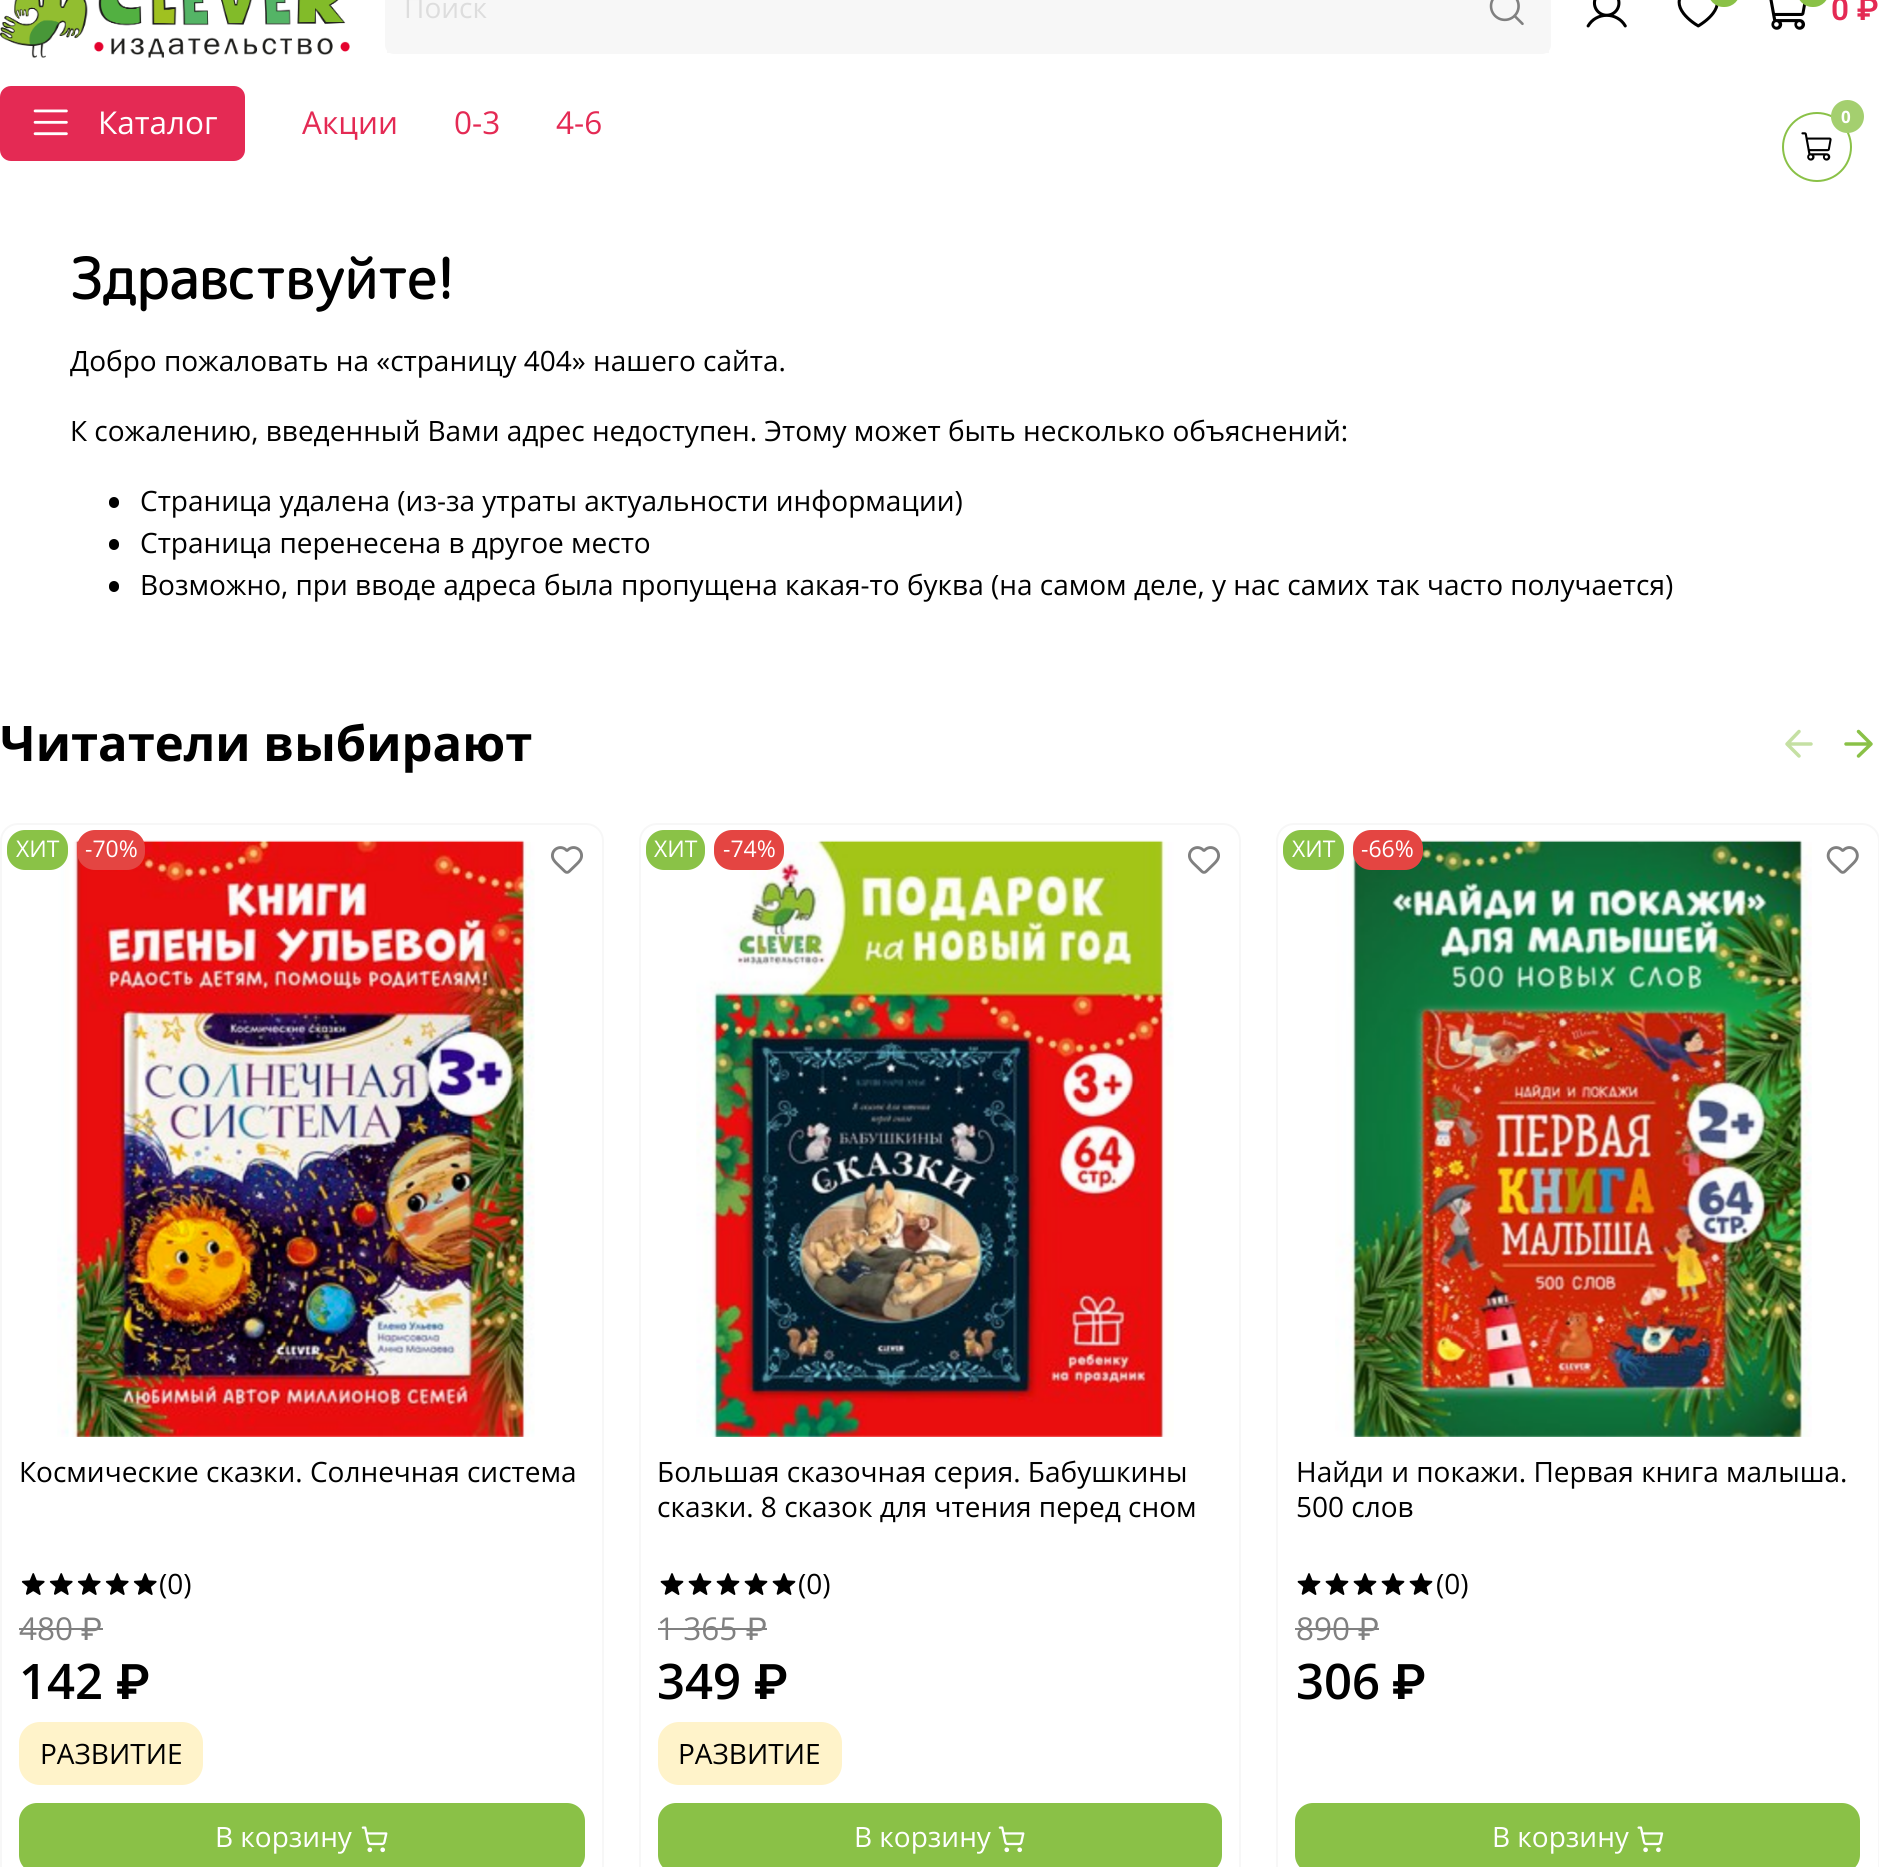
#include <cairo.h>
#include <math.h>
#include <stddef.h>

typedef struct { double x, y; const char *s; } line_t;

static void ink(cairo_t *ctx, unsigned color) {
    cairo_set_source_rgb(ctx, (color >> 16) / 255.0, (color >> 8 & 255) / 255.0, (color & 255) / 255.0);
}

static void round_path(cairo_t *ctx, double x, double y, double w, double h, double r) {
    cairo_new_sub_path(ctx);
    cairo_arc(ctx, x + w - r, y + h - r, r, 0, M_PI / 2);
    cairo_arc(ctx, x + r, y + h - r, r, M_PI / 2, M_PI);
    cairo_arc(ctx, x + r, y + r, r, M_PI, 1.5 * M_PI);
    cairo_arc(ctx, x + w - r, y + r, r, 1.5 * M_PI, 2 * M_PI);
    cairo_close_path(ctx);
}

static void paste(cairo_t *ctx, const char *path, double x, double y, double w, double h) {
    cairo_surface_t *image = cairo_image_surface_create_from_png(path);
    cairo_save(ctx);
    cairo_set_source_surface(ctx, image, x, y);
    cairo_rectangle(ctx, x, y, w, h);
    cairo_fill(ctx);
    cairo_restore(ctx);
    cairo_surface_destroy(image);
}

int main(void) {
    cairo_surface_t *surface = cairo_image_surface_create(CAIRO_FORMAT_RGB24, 1879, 1867);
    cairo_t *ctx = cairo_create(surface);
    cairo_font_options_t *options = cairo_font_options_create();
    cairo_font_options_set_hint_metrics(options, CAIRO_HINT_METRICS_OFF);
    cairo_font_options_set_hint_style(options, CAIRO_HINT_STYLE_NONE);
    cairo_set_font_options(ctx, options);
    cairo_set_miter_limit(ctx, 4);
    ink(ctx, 0xFFFFFF);
    cairo_paint(ctx);
    paste(ctx, "media/1.png", 0, 0, 350, 58);
    round_path(ctx, 386, -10, 1164, 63, 8);
    ink(ctx, 0xF7F7F7);
    cairo_stroke(ctx);
    cairo_rectangle(ctx, 387, 0, 1162, 53);
    cairo_fill(ctx);
    cairo_select_font_face(ctx, "Open Sans", CAIRO_FONT_SLANT_NORMAL, CAIRO_FONT_WEIGHT_NORMAL);
    cairo_set_font_size(ctx, 28);
    ink(ctx, 0xDDDDDD);
    cairo_move_to(ctx, 404, 18);
    cairo_show_text(ctx, "Поиск");
    paste(ctx, "media/2.png", 1489, 0, 35, 26);
    paste(ctx, "media/3.png", 1586, 0, 41, 28);
    paste(ctx, "media/4.png", 1677, 0, 42, 28);
    ink(ctx, 0x8AC147);
    round_path(ctx, 1708, -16, 32, 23, 15.5);
    cairo_fill(ctx);
    paste(ctx, "media/5.png", 1769, 0, 37, 30);
    round_path(ctx, 1797, -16, 32, 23, 15.5);
    cairo_fill(ctx);
    cairo_select_font_face(ctx, "Roboto SemiBold", CAIRO_FONT_SLANT_NORMAL, CAIRO_FONT_WEIGHT_NORMAL);
    cairo_set_font_size(ctx, 31.5);
    ink(ctx, 0xE42A54);
    cairo_move_to(ctx, 1831, 20);
    cairo_show_text(ctx, "0 ₽");
    round_path(ctx, 0, 86, 245, 75, 11);
    cairo_fill(ctx);
    paste(ctx, "media/6.png", 33, 109, 35, 27);
    cairo_select_font_face(ctx, "Open Sans", CAIRO_FONT_SLANT_NORMAL, CAIRO_FONT_WEIGHT_NORMAL);
    ink(ctx, 0xFFFFFF);
    cairo_move_to(ctx, 98, 134);
    cairo_show_text(ctx, "Каталог");
    ink(ctx, 0xE42A54);
    {
        static const line_t items[] = {
            {302, 134, "Акции"},
            {454, 134, "0-3"},
            {556, 134, "4-6"},
        };
        for (size_t i = 0; i < sizeof items / sizeof *items; i++) {
            cairo_move_to(ctx, items[i].x, items[i].y);
            cairo_show_text(ctx, items[i].s);
        }
    }
    cairo_select_font_face(ctx, "Rounded Mplus 1c", CAIRO_FONT_SLANT_NORMAL, CAIRO_FONT_WEIGHT_BOLD);
    cairo_set_font_size(ctx, 56);
    ink(ctx, 0x000000);
    cairo_move_to(ctx, 70, 299);
    cairo_show_text(ctx, "Здравствуйте!");
    cairo_select_font_face(ctx, "Open Sans", CAIRO_FONT_SLANT_NORMAL, CAIRO_FONT_WEIGHT_NORMAL);
    cairo_set_font_size(ctx, 28);
    cairo_move_to(ctx, 70, 371);
    cairo_show_text(ctx, "Добро пожаловать на «страницу 404» нашего сайта.");
    cairo_move_to(ctx, 70, 441);
    cairo_show_text(ctx, "К сожалению, введенный Вами адрес недоступен. Этому может быть несколько объяснений:");
    round_path(ctx, 109, 497, 10, 11, 5);
    cairo_fill(ctx);
    cairo_move_to(ctx, 140, 511);
    cairo_show_text(ctx, "Страница удалена (из-за утраты актуальности информации)");
    round_path(ctx, 109, 539, 10, 11, 5);
    cairo_fill(ctx);
    cairo_move_to(ctx, 140, 553);
    cairo_show_text(ctx, "Страница перенесена в другое место");
    round_path(ctx, 109, 581, 10, 11, 5);
    cairo_fill(ctx);
    cairo_move_to(ctx, 140, 595);
    cairo_show_text(ctx, "Возможно, при вводе адреса была пропущена какая-то буква (на самом деле, у нас самих так часто получается)");
    cairo_select_font_face(ctx, "Open Sans", CAIRO_FONT_SLANT_NORMAL, CAIRO_FONT_WEIGHT_BOLD);
    cairo_set_font_size(ctx, 49);
    cairo_move_to(ctx, 0, 761);
    cairo_show_text(ctx, "Читатели выбирают");
    cairo_new_path(ctx);
    cairo_move_to(ctx, 1799, 756);
    cairo_line_to(ctx, 1787, 744);
    cairo_line_to(ctx, 1799, 731.5);
    cairo_move_to(ctx, 1811, 744);
    cairo_line_to(ctx, 1787, 744);
    ink(ctx, 0xC5E0A3);
    cairo_set_line_width(ctx, 3.5);
    cairo_set_line_cap(ctx, CAIRO_LINE_CAP_ROUND);
    cairo_set_line_join(ctx, CAIRO_LINE_JOIN_ROUND);
    cairo_stroke(ctx);
    cairo_new_path(ctx);
    cairo_move_to(ctx, 1846, 744);
    cairo_line_to(ctx, 1871, 744);
    cairo_move_to(ctx, 1858.5, 731.5);
    cairo_line_to(ctx, 1871, 744);
    cairo_line_to(ctx, 1858.5, 756);
    ink(ctx, 0x8AC147);
    cairo_stroke(ctx);
    round_path(ctx, 1, 824, 602, 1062, 17);
    ink(ctx, 0xF7F7F7);
    cairo_set_line_width(ctx, 2);
    cairo_set_line_cap(ctx, CAIRO_LINE_CAP_BUTT);
    cairo_set_line_join(ctx, CAIRO_LINE_JOIN_MITER);
    cairo_stroke(ctx);
    paste(ctx, "media/7.png", 57, 840, 478, 597);
    ink(ctx, 0x8AC247);
    round_path(ctx, 7, 830, 61, 40, 18);
    cairo_fill(ctx);
    cairo_select_font_face(ctx, "Open Sans", CAIRO_FONT_SLANT_NORMAL, CAIRO_FONT_WEIGHT_NORMAL);
    cairo_set_font_size(ctx, 23);
    ink(ctx, 0xFFFFFF);
    cairo_move_to(ctx, 16, 857);
    cairo_show_text(ctx, "ХИТ");
    ink(ctx, 0xE44542);
    round_path(ctx, 77, 830, 68, 40, 18);
    cairo_fill(ctx);
    ink(ctx, 0xFFFFFF);
    cairo_move_to(ctx, 85, 857);
    cairo_show_text(ctx, "-70%");
    paste(ctx, "media/8.png", 551, 846, 32, 28);
    cairo_set_font_size(ctx, 28);
    ink(ctx, 0x000000);
    cairo_move_to(ctx, 19, 1482);
    cairo_show_text(ctx, "Космические сказки. Солнечная система");
    paste(ctx, "media/9.png", 21, 1573, 24, 22);
    paste(ctx, "media/9.png", 49, 1573, 24, 22);
    paste(ctx, "media/9.png", 77, 1573, 24, 22);
    paste(ctx, "media/9.png", 105, 1573, 24, 22);
    paste(ctx, "media/9.png", 133, 1573, 24, 22);
    cairo_move_to(ctx, 159, 1594);
    cairo_show_text(ctx, "(0)");
    cairo_set_font_size(ctx, 31.5);
    ink(ctx, 0x808080);
    cairo_move_to(ctx, 19, 1640);
    cairo_show_text(ctx, "480");
    cairo_rectangle(ctx, 19, 1628, 55, 2);
    cairo_fill(ctx);
    cairo_select_font_face(ctx, "Roboto", CAIRO_FONT_SLANT_NORMAL, CAIRO_FONT_WEIGHT_NORMAL);
    cairo_move_to(ctx, 81, 1640);
    cairo_show_text(ctx, "₽");
    cairo_rectangle(ctx, 74, 1628, 29, 2);
    cairo_fill(ctx);
    cairo_select_font_face(ctx, "Open Sans SemiBold", CAIRO_FONT_SLANT_NORMAL, CAIRO_FONT_WEIGHT_NORMAL);
    cairo_set_font_size(ctx, 49);
    ink(ctx, 0x000000);
    cairo_move_to(ctx, 19, 1699);
    cairo_show_text(ctx, "142");
    cairo_select_font_face(ctx, "Roboto SemiBold", CAIRO_FONT_SLANT_NORMAL, CAIRO_FONT_WEIGHT_NORMAL);
    cairo_move_to(ctx, 116, 1699);
    cairo_show_text(ctx, "₽");
    ink(ctx, 0xFFF3CA);
    round_path(ctx, 19, 1722, 184, 63, 21);
    cairo_fill(ctx);
    cairo_select_font_face(ctx, "Open Sans", CAIRO_FONT_SLANT_NORMAL, CAIRO_FONT_WEIGHT_NORMAL);
    cairo_set_font_size(ctx, 28);
    ink(ctx, 0x000000);
    cairo_move_to(ctx, 40, 1764);
    cairo_show_text(ctx, "РАЗВИТИЕ");
    ink(ctx, 0x8AC147);
    round_path(ctx, 19, 1803, 566, 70, 18);
    cairo_fill(ctx);
    ink(ctx, 0xFFFFFF);
    cairo_move_to(ctx, 215, 1847);
    cairo_show_text(ctx, "В корзину");
    paste(ctx, "media/10.png", 361, 1826, 27, 27);
    round_path(ctx, 640, 824, 600, 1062, 17);
    ink(ctx, 0xF7F7F7);
    cairo_stroke(ctx);
    paste(ctx, "media/11.png", 696, 840, 478, 597);
    ink(ctx, 0x8AC247);
    round_path(ctx, 646, 830, 59, 40, 18);
    cairo_fill(ctx);
    cairo_set_font_size(ctx, 23);
    ink(ctx, 0xFFFFFF);
    cairo_move_to(ctx, 654, 857);
    cairo_show_text(ctx, "ХИТ");
    ink(ctx, 0xE44542);
    round_path(ctx, 714, 830, 70, 40, 18);
    cairo_fill(ctx);
    ink(ctx, 0xFFFFFF);
    cairo_move_to(ctx, 723, 857);
    cairo_show_text(ctx, "-74%");
    paste(ctx, "media/8.png", 1188, 846, 32, 28);
    cairo_set_font_size(ctx, 28);
    ink(ctx, 0x000000);
    cairo_move_to(ctx, 657, 1482);
    cairo_show_text(ctx, "Большая сказочная серия. Бабушкины");
    cairo_move_to(ctx, 657, 1517);
    cairo_show_text(ctx, "сказки. 8 сказок для чтения перед сном");
    paste(ctx, "media/12.png", 660, 1573, 24, 22);
    paste(ctx, "media/12.png", 688, 1573, 24, 22);
    paste(ctx, "media/12.png", 716, 1573, 24, 22);
    paste(ctx, "media/12.png", 744, 1573, 24, 22);
    paste(ctx, "media/12.png", 772, 1573, 24, 22);
    cairo_move_to(ctx, 798, 1594);
    cairo_show_text(ctx, "(0)");
    cairo_set_font_size(ctx, 31.5);
    ink(ctx, 0x808080);
    cairo_move_to(ctx, 657, 1640);
    cairo_show_text(ctx, "1 365");
    cairo_rectangle(ctx, 658, 1628, 81, 2);
    cairo_fill(ctx);
    cairo_select_font_face(ctx, "Roboto", CAIRO_FONT_SLANT_NORMAL, CAIRO_FONT_WEIGHT_NORMAL);
    cairo_move_to(ctx, 746, 1640);
    cairo_show_text(ctx, "₽");
    cairo_rectangle(ctx, 739, 1628, 28, 2);
    cairo_fill(ctx);
    cairo_select_font_face(ctx, "Open Sans SemiBold", CAIRO_FONT_SLANT_NORMAL, CAIRO_FONT_WEIGHT_NORMAL);
    cairo_set_font_size(ctx, 49);
    ink(ctx, 0x000000);
    cairo_move_to(ctx, 657, 1699);
    cairo_show_text(ctx, "349");
    cairo_select_font_face(ctx, "Roboto SemiBold", CAIRO_FONT_SLANT_NORMAL, CAIRO_FONT_WEIGHT_NORMAL);
    cairo_move_to(ctx, 754, 1699);
    cairo_show_text(ctx, "₽");
    ink(ctx, 0xFFF3CA);
    round_path(ctx, 658, 1722, 184, 63, 21);
    cairo_fill(ctx);
    cairo_select_font_face(ctx, "Open Sans", CAIRO_FONT_SLANT_NORMAL, CAIRO_FONT_WEIGHT_NORMAL);
    cairo_set_font_size(ctx, 28);
    ink(ctx, 0x000000);
    cairo_move_to(ctx, 678, 1764);
    cairo_show_text(ctx, "РАЗВИТИЕ");
    ink(ctx, 0x8AC147);
    round_path(ctx, 658, 1803, 564, 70, 18);
    cairo_fill(ctx);
    ink(ctx, 0xFFFFFF);
    cairo_move_to(ctx, 854, 1847);
    cairo_show_text(ctx, "В корзину");
    paste(ctx, "media/10.png", 998, 1826, 27, 27);
    round_path(ctx, 1277, 824, 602, 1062, 17);
    ink(ctx, 0xF7F7F7);
    cairo_stroke(ctx);
    paste(ctx, "media/13.png", 1335, 840, 477, 597);
    ink(ctx, 0x8AC247);
    round_path(ctx, 1283, 830, 61, 40, 18);
    cairo_fill(ctx);
    cairo_set_font_size(ctx, 23);
    ink(ctx, 0xFFFFFF);
    cairo_move_to(ctx, 1292, 857);
    cairo_show_text(ctx, "ХИТ");
    ink(ctx, 0xE44542);
    round_path(ctx, 1353, 830, 70, 40, 18);
    cairo_fill(ctx);
    ink(ctx, 0xFFFFFF);
    cairo_move_to(ctx, 1361, 857);
    cairo_show_text(ctx, "-66%");
    paste(ctx, "media/14.png", 1826, 846, 33, 28);
    cairo_set_font_size(ctx, 28);
    ink(ctx, 0x000000);
    cairo_move_to(ctx, 1296, 1482);
    cairo_show_text(ctx, "Найди и покажи. Первая книга малыша.");
    cairo_move_to(ctx, 1296, 1517);
    cairo_show_text(ctx, "500 слов");
    paste(ctx, "media/12.png", 1297, 1573, 24, 22);
    paste(ctx, "media/12.png", 1325, 1573, 24, 22);
    paste(ctx, "media/12.png", 1353, 1573, 24, 22);
    paste(ctx, "media/12.png", 1381, 1573, 24, 22);
    paste(ctx, "media/12.png", 1409, 1573, 24, 22);
    cairo_move_to(ctx, 1436, 1594);
    cairo_show_text(ctx, "(0)");
    cairo_set_font_size(ctx, 31.5);
    ink(ctx, 0x808080);
    cairo_move_to(ctx, 1296, 1640);
    cairo_show_text(ctx, "890");
    cairo_rectangle(ctx, 1295, 1628, 54, 2);
    cairo_fill(ctx);
    cairo_select_font_face(ctx, "Roboto", CAIRO_FONT_SLANT_NORMAL, CAIRO_FONT_WEIGHT_NORMAL);
    cairo_move_to(ctx, 1358, 1640);
    cairo_show_text(ctx, "₽");
    cairo_rectangle(ctx, 1349, 1628, 30, 2);
    cairo_fill(ctx);
    cairo_select_font_face(ctx, "Open Sans SemiBold", CAIRO_FONT_SLANT_NORMAL, CAIRO_FONT_WEIGHT_NORMAL);
    cairo_set_font_size(ctx, 49);
    ink(ctx, 0x000000);
    cairo_move_to(ctx, 1296, 1699);
    cairo_show_text(ctx, "306");
    cairo_select_font_face(ctx, "Roboto SemiBold", CAIRO_FONT_SLANT_NORMAL, CAIRO_FONT_WEIGHT_NORMAL);
    cairo_move_to(ctx, 1392, 1699);
    cairo_show_text(ctx, "₽");
    ink(ctx, 0x8AC147);
    round_path(ctx, 1295, 1803, 565, 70, 18);
    cairo_fill(ctx);
    cairo_select_font_face(ctx, "Open Sans", CAIRO_FONT_SLANT_NORMAL, CAIRO_FONT_WEIGHT_NORMAL);
    cairo_set_font_size(ctx, 28);
    ink(ctx, 0xFFFFFF);
    cairo_move_to(ctx, 1492, 1847);
    cairo_show_text(ctx, "В корзину");
    paste(ctx, "media/15.png", 1637, 1826, 27, 27);
    cairo_arc(ctx, 1817, 147, 34, 0, 2 * M_PI);
    ink(ctx, 0x8AC147);
    cairo_stroke(ctx);
    paste(ctx, "media/16.png", 1801, 132, 31, 29);
    ink(ctx, 0xA4CF6F);
    cairo_arc(ctx, 1847.5, 116.5, 16.5, 0, 2 * M_PI);
    cairo_fill(ctx);
    cairo_select_font_face(ctx, "Open Sans", CAIRO_FONT_SLANT_NORMAL, CAIRO_FONT_WEIGHT_BOLD);
    cairo_set_font_size(ctx, 17);
    ink(ctx, 0xFFFFFF);
    cairo_move_to(ctx, 1841, 123);
    cairo_show_text(ctx, "0");
    cairo_surface_write_to_png(surface, "image.png");
    cairo_font_options_destroy(options);
    cairo_destroy(ctx);
    cairo_surface_destroy(surface);
    return 0;
}
